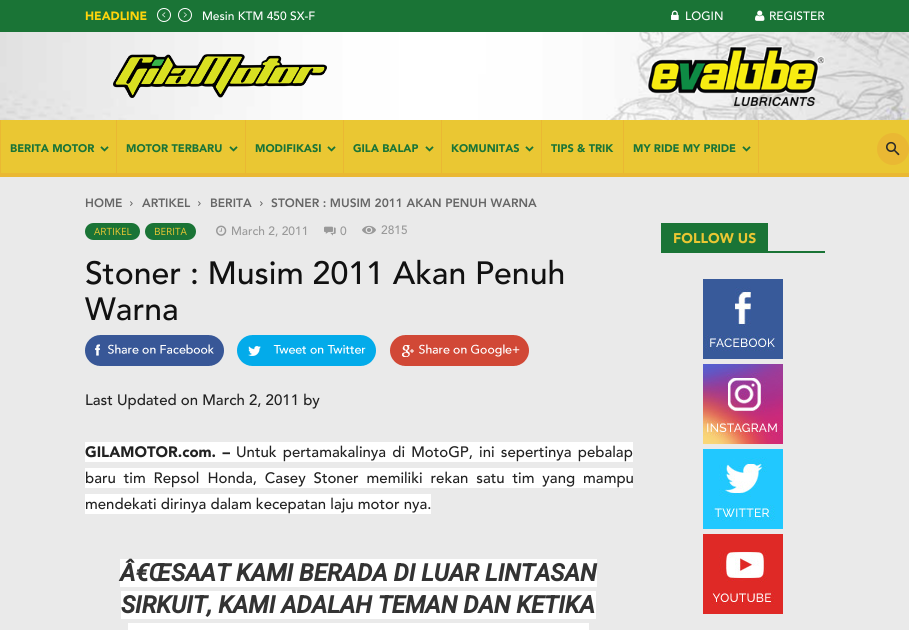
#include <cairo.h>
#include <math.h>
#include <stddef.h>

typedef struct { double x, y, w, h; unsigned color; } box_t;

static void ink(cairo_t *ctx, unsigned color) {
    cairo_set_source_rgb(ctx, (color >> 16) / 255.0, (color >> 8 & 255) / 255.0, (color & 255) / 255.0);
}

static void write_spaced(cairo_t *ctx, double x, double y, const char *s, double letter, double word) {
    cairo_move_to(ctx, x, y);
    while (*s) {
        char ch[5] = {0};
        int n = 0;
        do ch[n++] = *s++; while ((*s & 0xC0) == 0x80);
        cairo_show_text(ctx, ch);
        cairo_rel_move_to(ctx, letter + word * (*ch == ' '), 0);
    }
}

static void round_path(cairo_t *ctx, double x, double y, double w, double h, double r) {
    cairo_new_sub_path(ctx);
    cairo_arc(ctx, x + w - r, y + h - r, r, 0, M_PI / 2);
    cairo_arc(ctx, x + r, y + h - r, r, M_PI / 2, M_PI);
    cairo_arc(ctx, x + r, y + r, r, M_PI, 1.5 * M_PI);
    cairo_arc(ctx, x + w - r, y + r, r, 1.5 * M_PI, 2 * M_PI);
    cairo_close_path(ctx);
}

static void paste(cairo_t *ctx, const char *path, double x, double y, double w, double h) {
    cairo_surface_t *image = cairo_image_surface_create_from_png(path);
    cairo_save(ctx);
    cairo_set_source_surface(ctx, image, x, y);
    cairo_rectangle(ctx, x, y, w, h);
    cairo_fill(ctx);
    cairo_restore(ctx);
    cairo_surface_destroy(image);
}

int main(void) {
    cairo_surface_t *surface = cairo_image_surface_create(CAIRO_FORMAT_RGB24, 909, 630);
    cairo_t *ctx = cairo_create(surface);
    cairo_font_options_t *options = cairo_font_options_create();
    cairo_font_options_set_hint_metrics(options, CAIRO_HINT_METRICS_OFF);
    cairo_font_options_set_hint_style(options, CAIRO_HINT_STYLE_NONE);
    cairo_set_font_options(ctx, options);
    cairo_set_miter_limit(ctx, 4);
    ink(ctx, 0xEAEAEA);
    cairo_paint(ctx);
    ink(ctx, 0x1A7436);
    cairo_rectangle(ctx, 0, 0, 909, 32);
    cairo_fill(ctx);
    cairo_select_font_face(ctx, "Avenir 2 Black", CAIRO_FONT_SLANT_NORMAL, CAIRO_FONT_WEIGHT_NORMAL);
    cairo_set_font_size(ctx, 12);
    ink(ctx, 0xFED40C);
    cairo_move_to(ctx, 85, 20);
    cairo_show_text(ctx, "HEADLINE");
    cairo_new_path(ctx);
    cairo_arc(ctx, 164, 15, 6.5, 0, 2 * M_PI);
    ink(ctx, 0xFFFFFF);
    cairo_set_line_width(ctx, 1);
    cairo_stroke(ctx);
    paste(ctx, "media/1.png", 162, 12, 4, 6);
    cairo_arc(ctx, 185, 15, 6.5, 0, 2 * M_PI);
    cairo_stroke(ctx);
    paste(ctx, "media/2.png", 183, 12, 4, 6);
    cairo_select_font_face(ctx, "Avenir Medium", CAIRO_FONT_SLANT_NORMAL, CAIRO_FONT_WEIGHT_NORMAL);
    cairo_move_to(ctx, 202, 20);
    cairo_show_text(ctx, "Mesin KTM 450 SX-F");
    paste(ctx, "media/3.png", 671, 10, 8, 10);
    cairo_move_to(ctx, 685, 20);
    cairo_show_text(ctx, "LOGIN");
    paste(ctx, "media/4.png", 755, 10, 10, 11);
    cairo_move_to(ctx, 769, 20);
    cairo_show_text(ctx, "REGISTER");
    paste(ctx, "media/5.png", 0, 32, 909, 88);
    paste(ctx, "media/6.png", 113, 54, 214, 44);
    paste(ctx, "media/7.png", 647, 46, 178, 60);
    {
        static const box_t items[] = {
            {1, 120, 908, 53, 0xEAC733},
            {0, 173, 909, 4, 0xEAB833},
            {0, 120, 1, 57, 0xEAB833},
        };
        for (size_t i = 0; i < sizeof items / sizeof *items; i++) {
            ink(ctx, items[i].color);
            cairo_rectangle(ctx, items[i].x, items[i].y, items[i].w, items[i].h);
            cairo_fill(ctx);
        }
    }
    cairo_select_font_face(ctx, "Avenir 2 Black", CAIRO_FONT_SLANT_NORMAL, CAIRO_FONT_WEIGHT_NORMAL);
    cairo_set_font_size(ctx, 11);
    ink(ctx, 0x1A7436);
    cairo_move_to(ctx, 10, 152);
    cairo_show_text(ctx, "BERITA MOTOR");
    paste(ctx, "media/8.png", 100, 146, 9, 6);
    ink(ctx, 0xEAB833);
    cairo_rectangle(ctx, 116, 120, 1, 57);
    cairo_fill(ctx);
    ink(ctx, 0x1A7436);
    cairo_move_to(ctx, 126, 152);
    cairo_show_text(ctx, "MOTOR TERBARU");
    paste(ctx, "media/8.png", 229, 146, 9, 6);
    ink(ctx, 0xEAB833);
    cairo_rectangle(ctx, 245, 120, 1, 57);
    cairo_fill(ctx);
    ink(ctx, 0x1A7436);
    cairo_move_to(ctx, 255, 152);
    cairo_show_text(ctx, "MODIFIKASI");
    paste(ctx, "media/8.png", 327, 146, 9, 6);
    ink(ctx, 0xEAB833);
    cairo_rectangle(ctx, 343, 120, 1, 57);
    cairo_fill(ctx);
    ink(ctx, 0x1A7436);
    cairo_move_to(ctx, 353, 152);
    cairo_show_text(ctx, "GILA BALAP");
    paste(ctx, "media/8.png", 425, 146, 9, 6);
    ink(ctx, 0xEAB833);
    cairo_rectangle(ctx, 441, 120, 1, 57);
    cairo_fill(ctx);
    ink(ctx, 0x1A7436);
    cairo_move_to(ctx, 451, 152);
    cairo_show_text(ctx, "KOMUNITAS");
    paste(ctx, "media/8.png", 525, 146, 9, 6);
    ink(ctx, 0xEAB833);
    cairo_rectangle(ctx, 541, 120, 1, 57);
    cairo_fill(ctx);
    ink(ctx, 0x1A7436);
    cairo_move_to(ctx, 551, 152);
    cairo_show_text(ctx, "TIPS & TRIK");
    ink(ctx, 0xEAB833);
    cairo_rectangle(ctx, 758, 120, 1, 57);
    cairo_fill(ctx);
    cairo_rectangle(ctx, 623, 120, 1, 57);
    cairo_fill(ctx);
    ink(ctx, 0x1A7436);
    cairo_move_to(ctx, 633, 152);
    cairo_show_text(ctx, "MY RIDE MY PRIDE");
    paste(ctx, "media/8.png", 742, 146, 9, 6);
    ink(ctx, 0xEAB833);
    cairo_arc(ctx, 893, 149, 16, 0, 2 * M_PI);
    cairo_fill(ctx);
    paste(ctx, "media/9.png", 886, 141, 14, 15);
    cairo_select_font_face(ctx, "Avenir Black", CAIRO_FONT_SLANT_NORMAL, CAIRO_FONT_WEIGHT_NORMAL);
    cairo_set_font_size(ctx, 12);
    ink(ctx, 0x666666);
    cairo_move_to(ctx, 85, 207);
    cairo_show_text(ctx, "HOME");
    paste(ctx, "media/10.png", 130, 201, 3, 5);
    cairo_move_to(ctx, 142, 207);
    cairo_show_text(ctx, "ARTIKEL");
    paste(ctx, "media/10.png", 198, 201, 3, 5);
    cairo_move_to(ctx, 210, 207);
    cairo_show_text(ctx, "BERITA");
    paste(ctx, "media/10.png", 260, 201, 3, 5);
    cairo_move_to(ctx, 271, 207);
    cairo_show_text(ctx, "STONER : MUSIM 2011 AKAN PENUH WARNA");
    ink(ctx, 0x1A7436);
    round_path(ctx, 85, 223, 55, 17, 8.5);
    cairo_fill(ctx);
    cairo_select_font_face(ctx, "Open Sans", CAIRO_FONT_SLANT_NORMAL, CAIRO_FONT_WEIGHT_NORMAL);
    cairo_set_font_size(ctx, 10);
    ink(ctx, 0xEAC733);
    cairo_move_to(ctx, 94, 235);
    cairo_show_text(ctx, "ARTIKEL");
    ink(ctx, 0x1A7436);
    round_path(ctx, 145, 223, 51, 17, 8.5);
    cairo_fill(ctx);
    ink(ctx, 0xEAC733);
    cairo_move_to(ctx, 154, 235);
    cairo_show_text(ctx, "BERITA");
    paste(ctx, "media/11.png", 216, 225, 11, 11);
    cairo_select_font_face(ctx, "Avenir Medium", CAIRO_FONT_SLANT_NORMAL, CAIRO_FONT_WEIGHT_NORMAL);
    cairo_set_font_size(ctx, 12);
    ink(ctx, 0x999999);
    cairo_move_to(ctx, 231, 235);
    cairo_show_text(ctx, "March 2, 2011");
    paste(ctx, "media/12.png", 324, 226, 12, 10);
    cairo_move_to(ctx, 340, 235);
    cairo_show_text(ctx, "0");
    paste(ctx, "media/13.png", 362, 225, 14, 10);
    cairo_move_to(ctx, 381, 234);
    cairo_show_text(ctx, "2815");
    cairo_set_font_size(ctx, 32);
    ink(ctx, 0x111111);
    cairo_move_to(ctx, 85, 284);
    cairo_show_text(ctx, "Stoner : Musim 2011 Akan Penuh");
    cairo_move_to(ctx, 85, 320);
    cairo_show_text(ctx, "Warna");
    paste(ctx, "media/14.png", 85, 335, 139, 31);
    paste(ctx, "media/15.png", 237, 335, 139, 31);
    paste(ctx, "media/16.png", 390, 335, 139, 31);
    cairo_set_font_size(ctx, 15);
    ink(ctx, 0x222222);
    cairo_move_to(ctx, 85, 405);
    cairo_show_text(ctx, "Last Updated on March 2, 2011 by");
    ink(ctx, 0xFFFFFF);
    cairo_rectangle(ctx, 85, 442, 548, 20);
    cairo_fill(ctx);
    cairo_select_font_face(ctx, "Avenir 2 Black", CAIRO_FONT_SLANT_NORMAL, CAIRO_FONT_WEIGHT_NORMAL);
    ink(ctx, 0x222222);
    write_spaced(ctx, 85, 457, "GILAMOTOR.com. –", 0, 2);
    cairo_select_font_face(ctx, "Avenir Medium", CAIRO_FONT_SLANT_NORMAL, CAIRO_FONT_WEIGHT_NORMAL);
    write_spaced(ctx, 236, 457, "Untuk pertamakalinya di MotoGP, ini sepertinya pebalap", 0, 2);
    ink(ctx, 0xFFFFFF);
    cairo_rectangle(ctx, 85, 468, 548, 20);
    cairo_fill(ctx);
    ink(ctx, 0x222222);
    write_spaced(ctx, 85, 483, "baru tim Repsol Honda, Casey Stoner memiliki rekan satu tim yang mampu", 0, 3.75);
    ink(ctx, 0xFFFFFF);
    cairo_rectangle(ctx, 85, 494, 346, 20);
    cairo_fill(ctx);
    ink(ctx, 0x222222);
    cairo_move_to(ctx, 85, 509);
    cairo_show_text(ctx, "mendekati dirinya dalam kecepatan laju motor nya.");
    ink(ctx, 0xFFFFFF);
    cairo_rectangle(ctx, 120, 559, 477, 28);
    cairo_fill(ctx);
    cairo_select_font_face(ctx, "Roboto", CAIRO_FONT_SLANT_ITALIC, CAIRO_FONT_WEIGHT_BOLD);
    cairo_set_font_size(ctx, 24);
    ink(ctx, 0x333333);
    cairo_move_to(ctx, 120, 581);
    cairo_show_text(ctx, "Â€ŒSAAT KAMI BERADA DI LUAR LINTASAN");
    ink(ctx, 0xFFFFFF);
    cairo_rectangle(ctx, 121, 591, 475, 28);
    cairo_fill(ctx);
    ink(ctx, 0x333333);
    cairo_move_to(ctx, 121, 613);
    cairo_show_text(ctx, "SIRKUIT, KAMI ADALAH TEMAN DAN KETIKA");
    {
        static const box_t items[] = {
            {128, 623, 461, 7, 0xFFFFFF},
            {661, 251, 164, 2, 0x1A7436},
            {661, 223, 107, 28, 0x1A7436},
        };
        for (size_t i = 0; i < sizeof items / sizeof *items; i++) {
            ink(ctx, items[i].color);
            cairo_rectangle(ctx, items[i].x, items[i].y, items[i].w, items[i].h);
            cairo_fill(ctx);
        }
    }
    cairo_select_font_face(ctx, "Avenir 2 Black", CAIRO_FONT_SLANT_NORMAL, CAIRO_FONT_WEIGHT_NORMAL);
    cairo_set_font_size(ctx, 14);
    ink(ctx, 0xEAC733);
    cairo_move_to(ctx, 673, 243);
    cairo_show_text(ctx, "FOLLOW US");
    paste(ctx, "media/17.png", 703, 279, 80, 80);
    paste(ctx, "media/18.png", 703, 364, 80, 80);
    paste(ctx, "media/19.png", 703, 449, 80, 80);
    paste(ctx, "media/20.png", 703, 534, 80, 80);
    cairo_surface_write_to_png(surface, "image.png");
    cairo_font_options_destroy(options);
    cairo_destroy(ctx);
    cairo_surface_destroy(surface);
    return 0;
}
